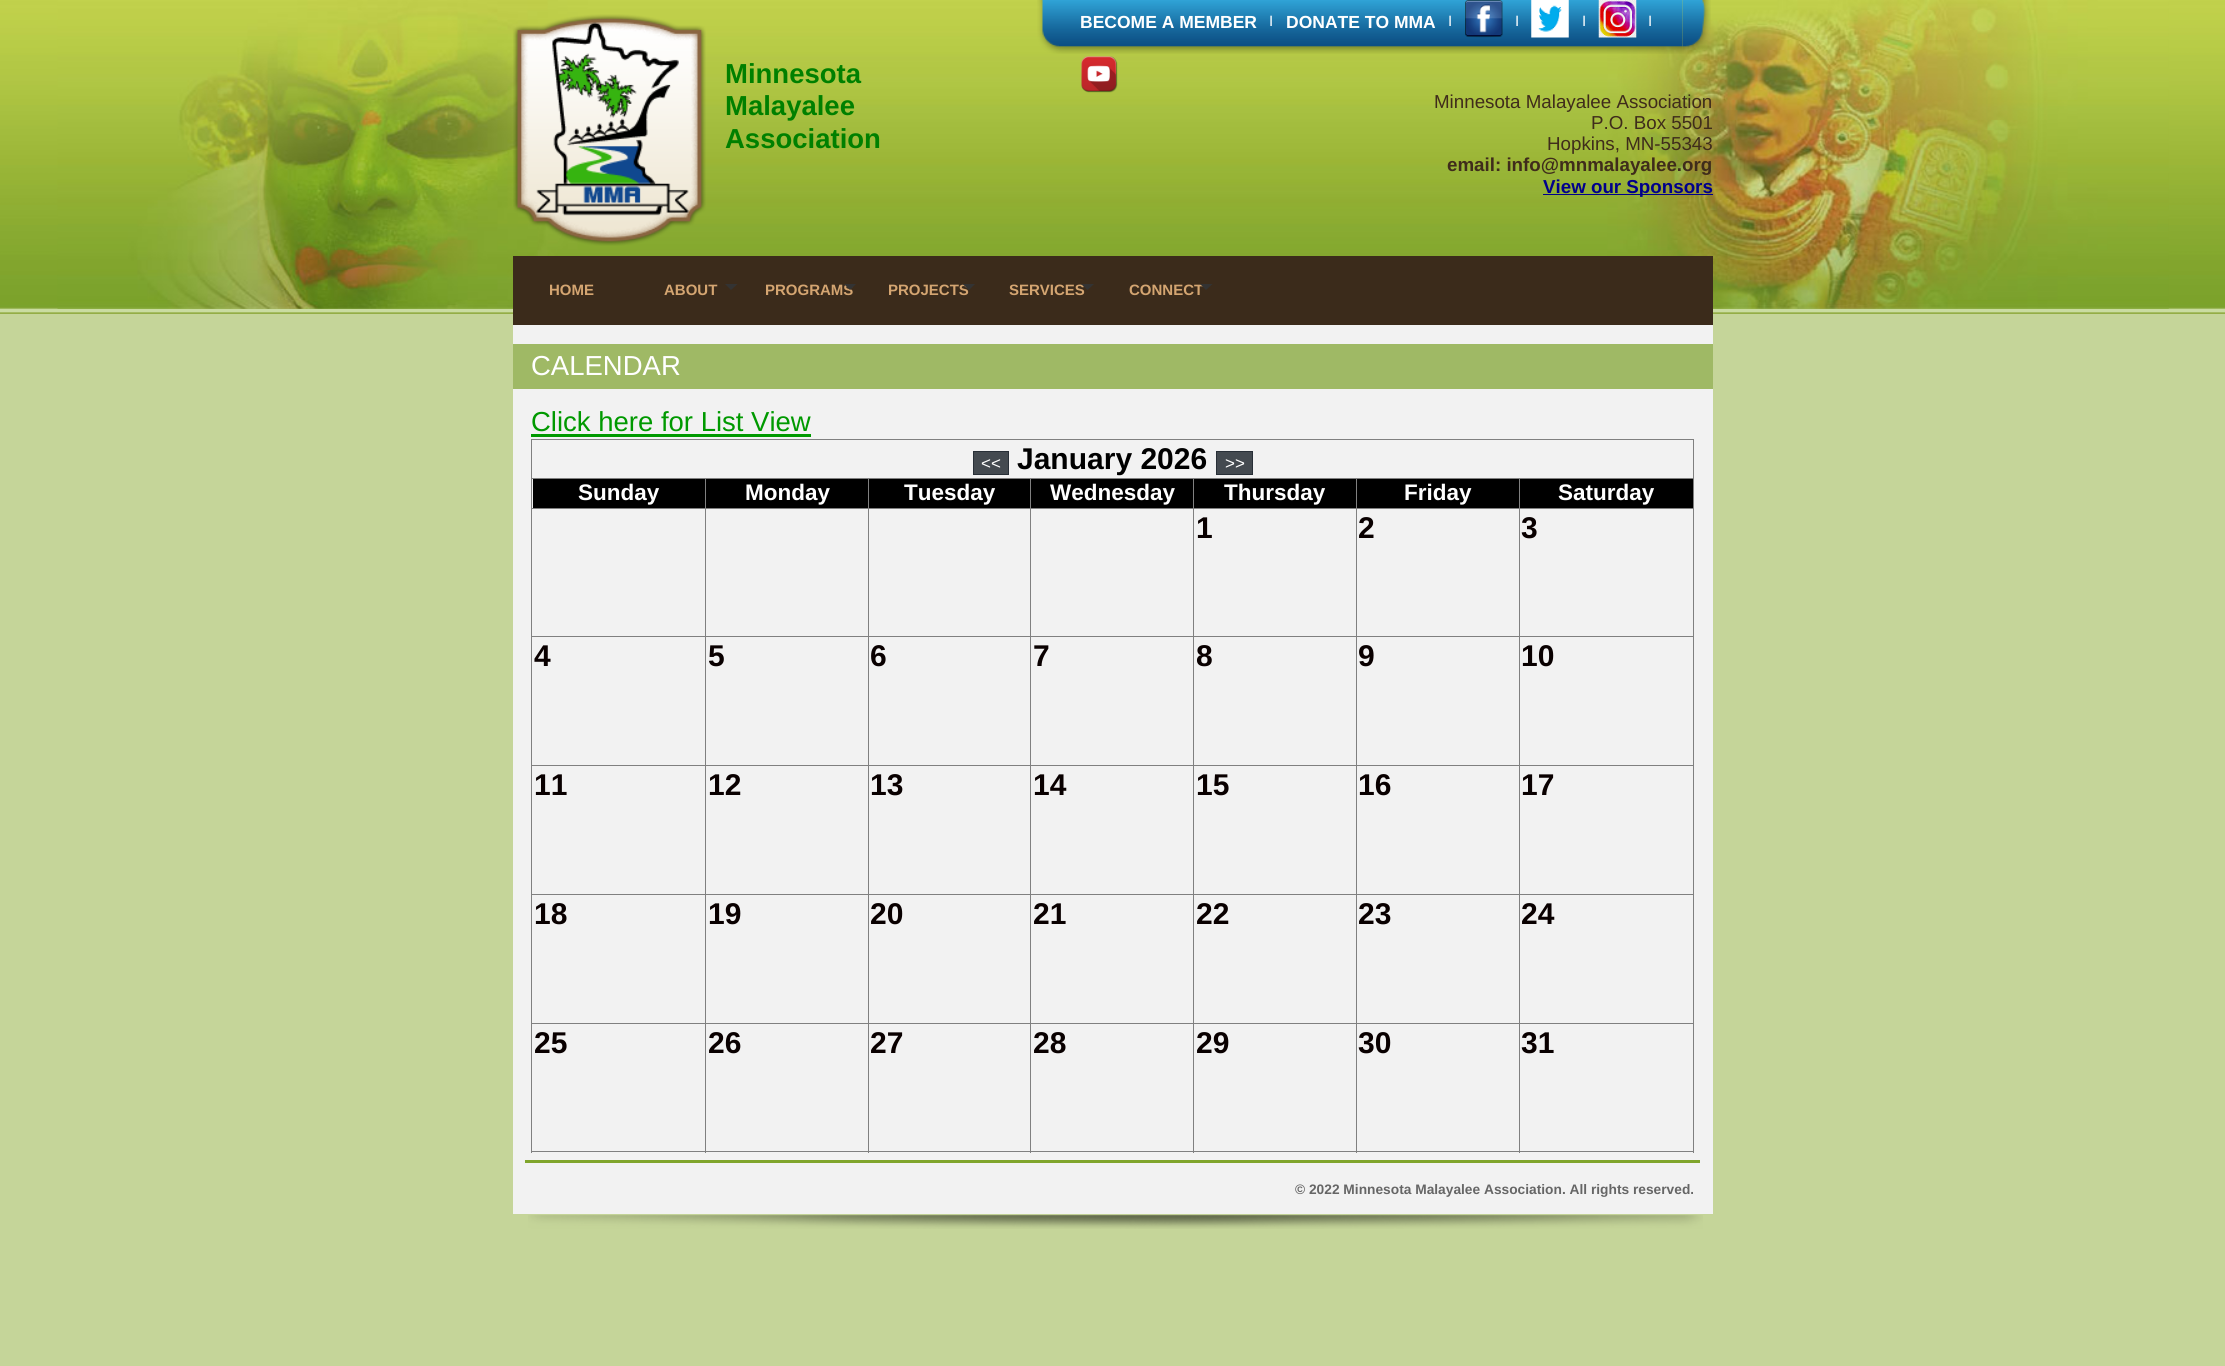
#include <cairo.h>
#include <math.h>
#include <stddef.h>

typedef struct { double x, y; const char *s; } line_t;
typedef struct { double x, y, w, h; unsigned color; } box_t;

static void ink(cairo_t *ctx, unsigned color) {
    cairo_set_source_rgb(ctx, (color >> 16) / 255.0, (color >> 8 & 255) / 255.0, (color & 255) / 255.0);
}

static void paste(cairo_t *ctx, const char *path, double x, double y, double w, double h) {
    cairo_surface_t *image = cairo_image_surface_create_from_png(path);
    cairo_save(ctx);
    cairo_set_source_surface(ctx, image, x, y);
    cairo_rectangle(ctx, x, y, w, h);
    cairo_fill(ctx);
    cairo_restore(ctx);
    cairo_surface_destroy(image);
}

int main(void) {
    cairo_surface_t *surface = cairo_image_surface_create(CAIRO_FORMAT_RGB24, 2225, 1366);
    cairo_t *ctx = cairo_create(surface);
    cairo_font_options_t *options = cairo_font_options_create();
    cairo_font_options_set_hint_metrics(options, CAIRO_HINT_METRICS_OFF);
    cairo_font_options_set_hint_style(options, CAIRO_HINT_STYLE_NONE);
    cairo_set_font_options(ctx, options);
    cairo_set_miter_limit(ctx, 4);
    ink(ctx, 0xC5D599);
    cairo_paint(ctx);
    paste(ctx, "media/1.png", 0, 0, 2225, 314);
    paste(ctx, "media/2.png", 57, 0, 2112, 309);
    paste(ctx, "media/3.png", 513, 14, 193, 232);
    cairo_select_font_face(ctx, "Liberation Sans", CAIRO_FONT_SLANT_NORMAL, CAIRO_FONT_WEIGHT_BOLD);
    cairo_set_font_size(ctx, 27.5);
    ink(ctx, 0x008000);
    {
        static const line_t items[] = {
            {725, 83, "Minnesota"},
            {725, 115, "Malayalee"},
            {725, 148, "Association"},
        };
        for (size_t i = 0; i < sizeof items / sizeof *items; i++) {
            cairo_move_to(ctx, items[i].x, items[i].y);
            cairo_show_text(ctx, items[i].s);
        }
    }
    paste(ctx, "media/4.png", 1682, 0, 29, 54);
    paste(ctx, "media/5.png", 1037, 0, 646, 54);
    cairo_set_font_size(ctx, 17.5);
    ink(ctx, 0xFFFFFF);
    cairo_move_to(ctx, 1080, 28);
    cairo_show_text(ctx, "BECOME A MEMBER");
    cairo_select_font_face(ctx, "Liberation Sans", CAIRO_FONT_SLANT_NORMAL, CAIRO_FONT_WEIGHT_NORMAL);
    cairo_set_font_size(ctx, 15);
    cairo_move_to(ctx, 1269, 26);
    cairo_show_text(ctx, "I");
    cairo_select_font_face(ctx, "Liberation Sans", CAIRO_FONT_SLANT_NORMAL, CAIRO_FONT_WEIGHT_BOLD);
    cairo_set_font_size(ctx, 17.5);
    cairo_move_to(ctx, 1286, 28);
    cairo_show_text(ctx, "DONATE TO MMA");
    cairo_select_font_face(ctx, "Liberation Sans", CAIRO_FONT_SLANT_NORMAL, CAIRO_FONT_WEIGHT_NORMAL);
    cairo_set_font_size(ctx, 15);
    cairo_move_to(ctx, 1448, 26);
    cairo_show_text(ctx, "I");
    paste(ctx, "media/6.png", 1465, 0, 38, 38);
    cairo_move_to(ctx, 1515, 26);
    cairo_show_text(ctx, "I");
    paste(ctx, "media/7.png", 1531, 0, 38, 38);
    cairo_move_to(ctx, 1582, 26);
    cairo_show_text(ctx, "I");
    paste(ctx, "media/8.png", 1598, 0, 39, 38);
    cairo_move_to(ctx, 1648, 26);
    cairo_show_text(ctx, "I");
    paste(ctx, "media/9.png", 1081, 56, 37, 37);
    cairo_set_font_size(ctx, 18.75);
    ink(ctx, 0x3F2C1B);
    {
        static const line_t items[] = {
            {1434, 108, "Minnesota Malayalee Association"},
            {1591, 129, "P.O. Box 5501"},
            {1547, 150, "Hopkins, MN-55343"},
        };
        for (size_t i = 0; i < sizeof items / sizeof *items; i++) {
            cairo_move_to(ctx, items[i].x, items[i].y);
            cairo_show_text(ctx, items[i].s);
        }
    }
    cairo_select_font_face(ctx, "Liberation Sans", CAIRO_FONT_SLANT_NORMAL, CAIRO_FONT_WEIGHT_BOLD);
    cairo_move_to(ctx, 1447, 171);
    cairo_show_text(ctx, "email: info@mnmalayalee.org");
    ink(ctx, 0x00008B);
    cairo_rectangle(ctx, 1543, 194, 170, 1);
    cairo_fill(ctx);
    cairo_move_to(ctx, 1543, 193);
    cairo_show_text(ctx, "View our Sponsors");
    ink(ctx, 0x3B2B1B);
    cairo_rectangle(ctx, 513, 256, 1200, 69);
    cairo_fill(ctx);
    cairo_set_font_size(ctx, 15);
    ink(ctx, 0xD4A571);
    cairo_move_to(ctx, 549, 295);
    cairo_show_text(ctx, "HOME");
    cairo_move_to(ctx, 664, 295);
    cairo_show_text(ctx, "ABOUT");
    ink(ctx, 0x333333);
    cairo_new_path(ctx);
    cairo_move_to(ctx, 725, 284);
    cairo_line_to(ctx, 737.5, 284);
    cairo_line_to(ctx, 731, 290);
    cairo_close_path(ctx);
    cairo_fill(ctx);
    ink(ctx, 0xD4A571);
    cairo_move_to(ctx, 765, 295);
    cairo_show_text(ctx, "PROGRAMS");
    ink(ctx, 0x333333);
    cairo_new_path(ctx);
    cairo_move_to(ctx, 844, 284);
    cairo_line_to(ctx, 856, 284);
    cairo_line_to(ctx, 850, 290);
    cairo_close_path(ctx);
    cairo_fill(ctx);
    ink(ctx, 0xD4A571);
    cairo_move_to(ctx, 888, 295);
    cairo_show_text(ctx, "PROJECTS");
    ink(ctx, 0x333333);
    cairo_new_path(ctx);
    cairo_move_to(ctx, 962.5, 284);
    cairo_line_to(ctx, 975, 284);
    cairo_line_to(ctx, 969, 290);
    cairo_close_path(ctx);
    cairo_fill(ctx);
    ink(ctx, 0xD4A571);
    cairo_move_to(ctx, 1009, 295);
    cairo_show_text(ctx, "SERVICES");
    ink(ctx, 0x333333);
    cairo_new_path(ctx);
    cairo_move_to(ctx, 1081, 284);
    cairo_line_to(ctx, 1094, 284);
    cairo_line_to(ctx, 1087.5, 290);
    cairo_close_path(ctx);
    cairo_fill(ctx);
    ink(ctx, 0xD4A571);
    cairo_move_to(ctx, 1129, 295);
    cairo_show_text(ctx, "CONNECT");
    ink(ctx, 0x333333);
    cairo_new_path(ctx);
    cairo_move_to(ctx, 1200, 284);
    cairo_line_to(ctx, 1212.5, 284);
    cairo_line_to(ctx, 1206, 290);
    cairo_close_path(ctx);
    cairo_fill(ctx);
    ink(ctx, 0xF2F2F2);
    cairo_rectangle(ctx, 513, 325, 1200, 889);
    cairo_fill(ctx);
    ink(ctx, 0x9FB965);
    cairo_rectangle(ctx, 513, 344, 1200, 45);
    cairo_fill(ctx);
    cairo_select_font_face(ctx, "Liberation Sans", CAIRO_FONT_SLANT_NORMAL, CAIRO_FONT_WEIGHT_NORMAL);
    cairo_set_font_size(ctx, 27.5);
    ink(ctx, 0xFFFFFF);
    cairo_move_to(ctx, 531, 375);
    cairo_show_text(ctx, "CALENDAR");
    ink(ctx, 0x009900);
    cairo_move_to(ctx, 531, 431);
    cairo_show_text(ctx, "Click here for List View");
    {
        static const box_t items[] = {
            {531, 434, 280, 3, 0x009900},
            {531, 439, 1163, 1, 0x808080},
            {1693, 439, 1, 714, 0x808080},
            {531, 1151, 1163, 1, 0x808080},
            {531, 439, 1, 714, 0x808080},
        };
        for (size_t i = 0; i < sizeof items / sizeof *items; i++) {
            ink(ctx, items[i].color);
            cairo_rectangle(ctx, items[i].x, items[i].y, items[i].w, items[i].h);
            cairo_fill(ctx);
        }
    }
    ink(ctx, 0x444A50);
    cairo_rectangle(ctx, 973.5, 451.5, 35, 23);
    cairo_fill_preserve(ctx);
    ink(ctx, 0x282F37);
    cairo_set_line_width(ctx, 1);
    cairo_stroke(ctx);
    cairo_set_font_size(ctx, 17);
    ink(ctx, 0xFFFFFF);
    cairo_move_to(ctx, 981, 469);
    cairo_show_text(ctx, "<<");
    cairo_select_font_face(ctx, "Liberation Sans", CAIRO_FONT_SLANT_NORMAL, CAIRO_FONT_WEIGHT_BOLD);
    cairo_set_font_size(ctx, 30);
    ink(ctx, 0x000000);
    cairo_move_to(ctx, 1017, 469);
    cairo_show_text(ctx, "January 2026");
    ink(ctx, 0x444A50);
    cairo_rectangle(ctx, 1216.5, 451.5, 36, 23);
    cairo_fill_preserve(ctx);
    ink(ctx, 0x282F37);
    cairo_stroke(ctx);
    cairo_select_font_face(ctx, "Liberation Sans", CAIRO_FONT_SLANT_NORMAL, CAIRO_FONT_WEIGHT_NORMAL);
    cairo_set_font_size(ctx, 17);
    ink(ctx, 0xFFFFFF);
    cairo_move_to(ctx, 1225, 469);
    cairo_show_text(ctx, ">>");
    {
        static const box_t items[] = {
            {533, 479, 172, 29, 0x000000},
            {1519, 478, 175, 1, 0x808080},
            {1519, 508, 175, 1, 0x808080},
            {1519, 636, 175, 1, 0x808080},
            {1519, 765, 175, 1, 0x808080},
            {1519, 894, 175, 1, 0x808080},
            {1519, 1023, 175, 1, 0x808080},
            {1519, 1023, 1, 130, 0x808080},
            {1356, 1023, 164, 1, 0x808080},
            {1519, 894, 1, 130, 0x808080},
            {1356, 894, 164, 1, 0x808080},
            {1519, 765, 1, 130, 0x808080},
            {1356, 765, 164, 1, 0x808080},
            {1519, 636, 1, 130, 0x808080},
            {1356, 636, 164, 1, 0x808080},
            {1519, 508, 1, 130, 0x808080},
            {1356, 508, 164, 1, 0x808080},
            {1519, 478, 1, 31, 0x808080},
            {1356, 478, 164, 1, 0x808080},
            {1356, 1023, 1, 130, 0x808080},
            {1193, 1023, 165, 1, 0x808080},
            {1356, 894, 1, 130, 0x808080},
            {1193, 894, 165, 1, 0x808080},
            {1356, 765, 1, 130, 0x808080},
            {1193, 765, 165, 1, 0x808080},
            {1356, 636, 1, 130, 0x808080},
            {1193, 636, 165, 1, 0x808080},
            {1356, 508, 1, 130, 0x808080},
            {1193, 508, 165, 1, 0x808080},
            {1356, 478, 1, 31, 0x808080},
            {1193, 478, 165, 1, 0x808080},
            {1193, 1023, 1, 130, 0x808080},
            {1030, 1023, 164, 1, 0x808080},
            {1193, 894, 1, 130, 0x808080},
            {1030, 894, 164, 1, 0x808080},
            {1193, 765, 1, 130, 0x808080},
            {1030, 765, 164, 1, 0x808080},
            {1193, 636, 1, 130, 0x808080},
            {1030, 636, 164, 1, 0x808080},
            {1193, 508, 1, 130, 0x808080},
            {1030, 508, 164, 1, 0x808080},
            {1193, 478, 1, 31, 0x808080},
            {1030, 478, 164, 1, 0x808080},
            {1030, 1023, 1, 130, 0x808080},
            {868, 1023, 163, 1, 0x808080},
            {1030, 894, 1, 130, 0x808080},
            {868, 894, 163, 1, 0x808080},
            {1030, 765, 1, 130, 0x808080},
            {868, 765, 163, 1, 0x808080},
            {1030, 636, 1, 130, 0x808080},
            {868, 636, 163, 1, 0x808080},
            {1030, 508, 1, 130, 0x808080},
            {868, 508, 163, 1, 0x808080},
            {1030, 478, 1, 31, 0x808080},
            {868, 478, 163, 1, 0x808080},
            {868, 1023, 1, 130, 0x808080},
            {705, 1023, 164, 1, 0x808080},
            {868, 894, 1, 130, 0x808080},
            {705, 894, 164, 1, 0x808080},
            {868, 765, 1, 130, 0x808080},
            {705, 765, 164, 1, 0x808080},
            {868, 636, 1, 130, 0x808080},
            {705, 636, 164, 1, 0x808080},
            {868, 508, 1, 130, 0x808080},
            {705, 508, 164, 1, 0x808080},
            {868, 478, 1, 31, 0x808080},
            {705, 478, 164, 1, 0x808080},
            {705, 1023, 1, 130, 0x808080},
            {531, 1023, 175, 1, 0x808080},
            {705, 894, 1, 130, 0x808080},
            {531, 894, 175, 1, 0x808080},
            {705, 765, 1, 130, 0x808080},
            {531, 765, 175, 1, 0x808080},
            {705, 636, 1, 130, 0x808080},
            {531, 636, 175, 1, 0x808080},
            {705, 508, 1, 130, 0x808080},
            {531, 508, 175, 1, 0x808080},
            {705, 478, 1, 31, 0x808080},
            {531, 478, 175, 1, 0x808080},
        };
        for (size_t i = 0; i < sizeof items / sizeof *items; i++) {
            ink(ctx, items[i].color);
            cairo_rectangle(ctx, items[i].x, items[i].y, items[i].w, items[i].h);
            cairo_fill(ctx);
        }
    }
    cairo_select_font_face(ctx, "Liberation Sans", CAIRO_FONT_SLANT_NORMAL, CAIRO_FONT_WEIGHT_BOLD);
    cairo_set_font_size(ctx, 22.5);
    ink(ctx, 0xFFFFFF);
    cairo_move_to(ctx, 578, 500);
    cairo_show_text(ctx, "Sunday");
    ink(ctx, 0x000000);
    cairo_rectangle(ctx, 706, 479, 162, 29);
    cairo_fill(ctx);
    ink(ctx, 0xFFFFFF);
    cairo_move_to(ctx, 745, 500);
    cairo_show_text(ctx, "Monday");
    ink(ctx, 0x000000);
    cairo_rectangle(ctx, 869, 479, 161, 29);
    cairo_fill(ctx);
    ink(ctx, 0xFFFFFF);
    cairo_move_to(ctx, 904, 500);
    cairo_show_text(ctx, "Tuesday");
    ink(ctx, 0x000000);
    cairo_rectangle(ctx, 1031, 479, 162, 29);
    cairo_fill(ctx);
    ink(ctx, 0xFFFFFF);
    cairo_move_to(ctx, 1050, 500);
    cairo_show_text(ctx, "Wednesday");
    ink(ctx, 0x000000);
    cairo_rectangle(ctx, 1194, 479, 162, 29);
    cairo_fill(ctx);
    ink(ctx, 0xFFFFFF);
    cairo_move_to(ctx, 1224, 500);
    cairo_show_text(ctx, "Thursday");
    ink(ctx, 0x000000);
    cairo_rectangle(ctx, 1357, 479, 162, 29);
    cairo_fill(ctx);
    ink(ctx, 0xFFFFFF);
    cairo_move_to(ctx, 1404, 500);
    cairo_show_text(ctx, "Friday");
    ink(ctx, 0x000000);
    cairo_rectangle(ctx, 1520, 479, 173, 29);
    cairo_fill(ctx);
    ink(ctx, 0xFFFFFF);
    cairo_move_to(ctx, 1558, 500);
    cairo_show_text(ctx, "Saturday");
    cairo_set_font_size(ctx, 30);
    ink(ctx, 0x090000);
    {
        static const line_t items[] = {
            {1196, 538, "1"},
            {1358, 538, "2"},
            {1521, 538, "3"},
            {534, 666, "4"},
            {708, 666, "5"},
            {870, 666, "6"},
            {1033, 666, "7"},
            {1196, 666, "8"},
            {1358, 666, "9"},
            {1521, 666, "10"},
            {534, 795, "11"},
            {708, 795, "12"},
            {870, 795, "13"},
            {1033, 795, "14"},
            {1196, 795, "15"},
            {1358, 795, "16"},
            {1521, 795, "17"},
            {534, 924, "18"},
            {708, 924, "19"},
            {870, 924, "20"},
            {1033, 924, "21"},
            {1196, 924, "22"},
            {1358, 924, "23"},
            {1521, 924, "24"},
            {534, 1053, "25"},
            {708, 1053, "26"},
            {870, 1053, "27"},
            {1033, 1053, "28"},
            {1196, 1053, "29"},
            {1358, 1053, "30"},
            {1521, 1053, "31"},
        };
        for (size_t i = 0; i < sizeof items / sizeof *items; i++) {
            cairo_move_to(ctx, items[i].x, items[i].y);
            cairo_show_text(ctx, items[i].s);
        }
    }
    ink(ctx, 0x80A52C);
    cairo_rectangle(ctx, 525, 1160, 1175, 3);
    cairo_fill(ctx);
    cairo_set_font_size(ctx, 13.75);
    ink(ctx, 0x666666);
    cairo_move_to(ctx, 1295, 1194);
    cairo_show_text(ctx, "© 2022 Minnesota Malayalee Association. All rights reserved.");
    paste(ctx, "media/10.png", 528, 1214, 1175, 15);
    cairo_surface_write_to_png(surface, "image.png");
    cairo_font_options_destroy(options);
    cairo_destroy(ctx);
    cairo_surface_destroy(surface);
    return 0;
}
